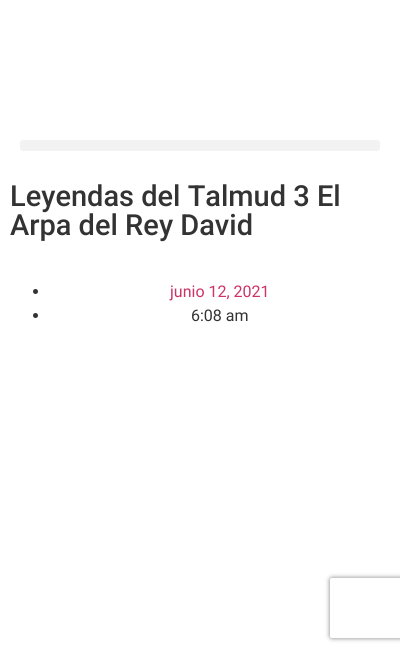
#include <cairo.h>
#include <math.h>
#include <stddef.h>


static void ink(cairo_t *ctx, unsigned color) {
    cairo_set_source_rgb(ctx, (color >> 16) / 255.0, (color >> 8 & 255) / 255.0, (color & 255) / 255.0);
}

static void round_path(cairo_t *ctx, double x, double y, double w, double h, double r) {
    cairo_new_sub_path(ctx);
    cairo_arc(ctx, x + w - r, y + h - r, r, 0, M_PI / 2);
    cairo_arc(ctx, x + r, y + h - r, r, M_PI / 2, M_PI);
    cairo_arc(ctx, x + r, y + r, r, M_PI, 1.5 * M_PI);
    cairo_arc(ctx, x + w - r, y + r, r, 1.5 * M_PI, 2 * M_PI);
    cairo_close_path(ctx);
}

static void blur_box(cairo_t *ctx, double x, double y, double w, double h, double r, double blur, double alpha) {
    cairo_push_group_with_content(ctx, CAIRO_CONTENT_ALPHA);
    cairo_set_operator(ctx, CAIRO_OPERATOR_SOURCE);
    for (int i = 15; i >= -15 && fmin(w, h) + blur * i / 3 > 0; i -= 2) {
        double e = blur * i / 6;
        cairo_set_source_rgba(ctx, 0, 0, 0, alpha * erfc((i - 1) / 8.5) / 2);
        round_path(ctx, x - e, y - e, w + 2 * e, h + 2 * e, fmax(0, fmin(r + e + blur * .6, fmin(w, h) / 2 + e)));
        cairo_fill(ctx);
    }
    cairo_pattern_t *soft = cairo_pop_group(ctx);
    cairo_mask(ctx, soft);
    cairo_pattern_destroy(soft);
}

int main(void) {
    cairo_surface_t *surface = cairo_image_surface_create(CAIRO_FORMAT_RGB24, 400, 652);
    cairo_t *ctx = cairo_create(surface);
    cairo_font_options_t *options = cairo_font_options_create();
    cairo_font_options_set_hint_metrics(options, CAIRO_HINT_METRICS_OFF);
    cairo_font_options_set_hint_style(options, CAIRO_HINT_STYLE_NONE);
    cairo_set_font_options(ctx, options);
    cairo_set_miter_limit(ctx, 4);
    ink(ctx, 0xFFFFFF);
    cairo_paint(ctx);
    ink(ctx, 0xF2F2F2);
    round_path(ctx, 20, 140, 360, 11, 3);
    cairo_fill(ctx);
    cairo_select_font_face(ctx, "Roboto Medium", CAIRO_FONT_SLANT_NORMAL, CAIRO_FONT_WEIGHT_NORMAL);
    cairo_set_font_size(ctx, 29);
    ink(ctx, 0x333333);
    cairo_move_to(ctx, 10, 206);
    cairo_show_text(ctx, "Leyendas del Talmud 3 El");
    cairo_move_to(ctx, 10, 235);
    cairo_show_text(ctx, "Arpa del Rey David");
    cairo_new_path(ctx);
    cairo_arc(ctx, 35.5, 291.5, 2.5, 0, 2 * M_PI);
    cairo_fill(ctx);
    cairo_select_font_face(ctx, "Roboto", CAIRO_FONT_SLANT_NORMAL, CAIRO_FONT_WEIGHT_NORMAL);
    cairo_set_font_size(ctx, 16);
    ink(ctx, 0xCC3366);
    cairo_move_to(ctx, 170, 297);
    cairo_show_text(ctx, "junio 12, 2021");
    ink(ctx, 0x333333);
    cairo_new_path(ctx);
    cairo_arc(ctx, 35.5, 315.5, 2.5, 0, 2 * M_PI);
    cairo_fill(ctx);
    cairo_move_to(ctx, 191, 321);
    cairo_show_text(ctx, "6:08 am");
    cairo_save(ctx);
    cairo_set_fill_rule(ctx, CAIRO_FILL_RULE_EVEN_ODD);
    cairo_new_path(ctx);
    cairo_move_to(ctx, 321, 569);
    cairo_line_to(ctx, 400, 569);
    cairo_line_to(ctx, 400, 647);
    cairo_line_to(ctx, 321, 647);
    cairo_close_path(ctx);
    cairo_move_to(ctx, 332, 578);
    cairo_line_to(ctx, 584, 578);
    cairo_curve_to(ctx, 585, 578, 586, 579, 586, 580);
    cairo_line_to(ctx, 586, 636);
    cairo_curve_to(ctx, 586, 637, 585, 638, 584, 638);
    cairo_line_to(ctx, 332, 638);
    cairo_curve_to(ctx, 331, 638, 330, 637, 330, 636);
    cairo_line_to(ctx, 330, 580);
    cairo_curve_to(ctx, 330, 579, 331, 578, 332, 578);
    cairo_close_path(ctx);
    cairo_clip(ctx);
    ink(ctx, 0x808080);
    blur_box(ctx, 330, 578, 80, 60, 2, 2.5, 1);
    cairo_restore(ctx);
    cairo_surface_write_to_png(surface, "image.png");
    cairo_font_options_destroy(options);
    cairo_destroy(ctx);
    cairo_surface_destroy(surface);
    return 0;
}
